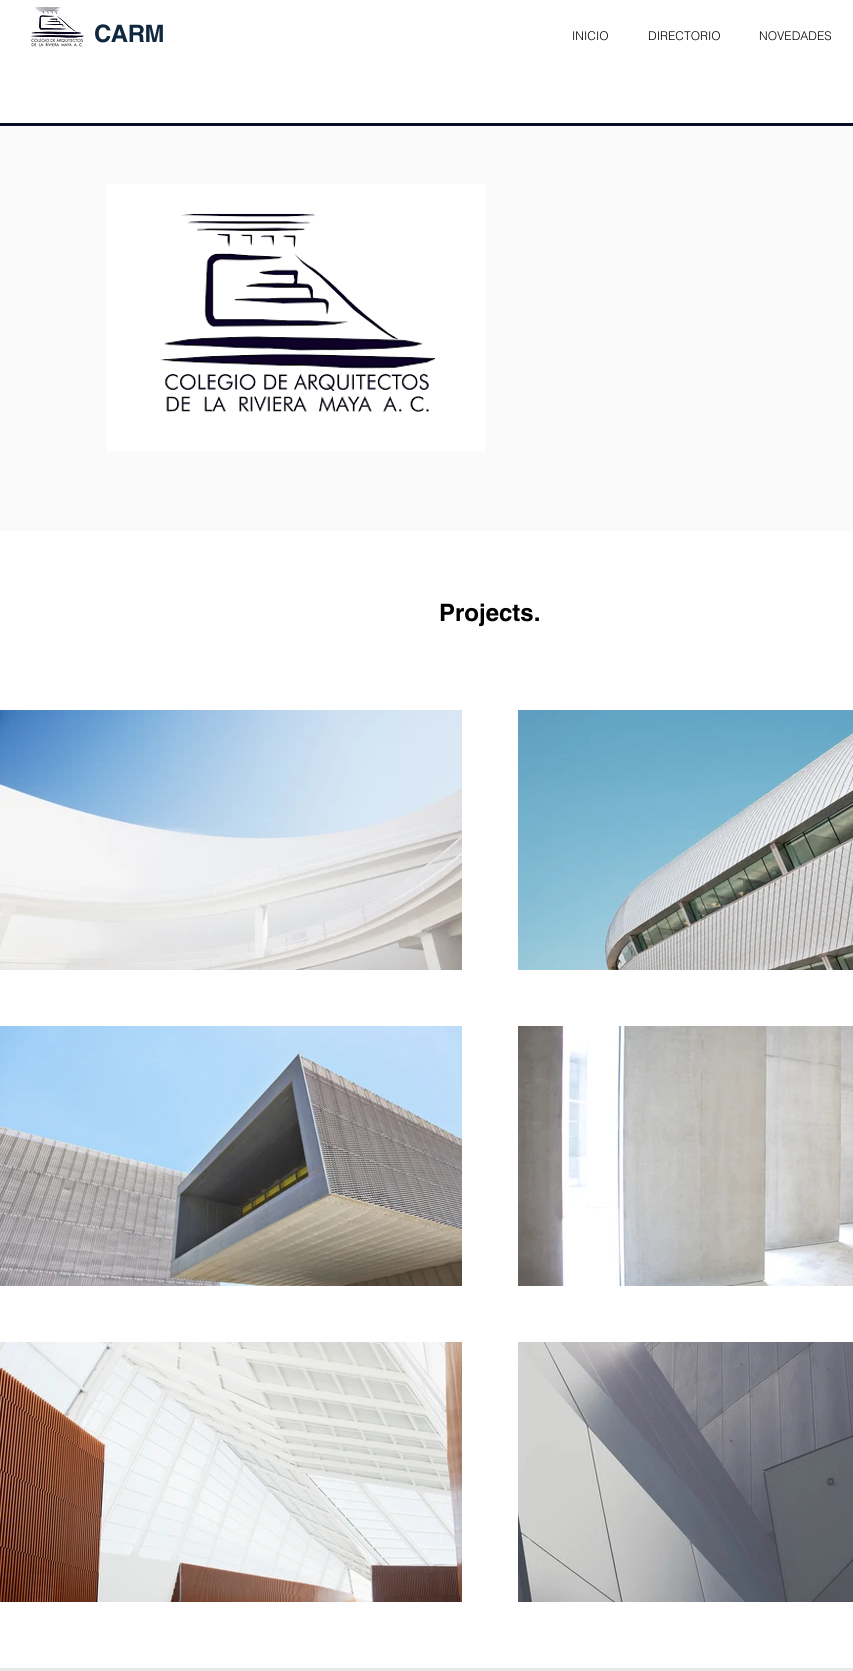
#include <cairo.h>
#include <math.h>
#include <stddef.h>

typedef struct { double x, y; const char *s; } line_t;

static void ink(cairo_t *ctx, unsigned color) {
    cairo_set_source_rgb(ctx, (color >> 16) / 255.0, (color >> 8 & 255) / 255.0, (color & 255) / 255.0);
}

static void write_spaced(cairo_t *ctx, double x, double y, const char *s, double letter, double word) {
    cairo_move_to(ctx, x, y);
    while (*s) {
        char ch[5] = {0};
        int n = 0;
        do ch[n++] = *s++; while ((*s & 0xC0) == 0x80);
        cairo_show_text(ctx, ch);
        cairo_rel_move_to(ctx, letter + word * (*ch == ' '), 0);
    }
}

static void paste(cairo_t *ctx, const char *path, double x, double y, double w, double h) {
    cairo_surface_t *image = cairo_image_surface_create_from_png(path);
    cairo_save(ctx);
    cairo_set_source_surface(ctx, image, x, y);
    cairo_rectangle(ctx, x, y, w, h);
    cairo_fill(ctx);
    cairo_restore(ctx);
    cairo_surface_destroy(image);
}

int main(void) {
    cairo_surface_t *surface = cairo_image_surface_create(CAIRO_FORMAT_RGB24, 853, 1671);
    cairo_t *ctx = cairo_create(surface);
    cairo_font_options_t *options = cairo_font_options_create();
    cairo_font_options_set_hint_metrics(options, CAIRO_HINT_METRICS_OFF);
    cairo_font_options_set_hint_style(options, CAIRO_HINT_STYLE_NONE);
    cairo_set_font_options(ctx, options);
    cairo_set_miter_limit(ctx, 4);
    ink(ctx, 0xE8E8E8);
    cairo_paint(ctx);
    ink(ctx, 0xFFFFFF);
    cairo_rectangle(ctx, 0, 0, 853, 123);
    cairo_fill(ctx);
    ink(ctx, 0x060E25);
    cairo_rectangle(ctx, 0, 123, 853, 3);
    cairo_fill(ctx);
    paste(ctx, "media/1.png", 30, 7, 54, 40);
    cairo_select_font_face(ctx, "helvetica", CAIRO_FONT_SLANT_NORMAL, CAIRO_FONT_WEIGHT_BOLD);
    cairo_set_font_size(ctx, 24);
    ink(ctx, 0x10283F);
    write_spaced(ctx, 94, 42, "CARM", -0.5, 0);
    cairo_select_font_face(ctx, "helvetica Light", CAIRO_FONT_SLANT_NORMAL, CAIRO_FONT_WEIGHT_NORMAL);
    cairo_set_font_size(ctx, 12);
    ink(ctx, 0x000000);
    {
        static const line_t items[] = {
            {572, 40, "INICIO"},
            {648, 40, "DIRECTORIO"},
            {759, 40, "NOVEDADES"},
        };
        for (size_t i = 0; i < sizeof items / sizeof *items; i++) {
            cairo_move_to(ctx, items[i].x, items[i].y);
            cairo_show_text(ctx, items[i].s);
        }
    }
    ink(ctx, 0xFAFAFA);
    cairo_rectangle(ctx, 0, 126, 853, 405);
    cairo_fill(ctx);
    paste(ctx, "media/2.png", 106, 184, 380, 267);
    ink(ctx, 0xFFFFFF);
    cairo_rectangle(ctx, 0, 531, 853, 1137);
    cairo_fill(ctx);
    cairo_select_font_face(ctx, "helvetica", CAIRO_FONT_SLANT_NORMAL, CAIRO_FONT_WEIGHT_BOLD);
    cairo_set_font_size(ctx, 24);
    ink(ctx, 0x000000);
    cairo_move_to(ctx, 439, 621);
    cairo_show_text(ctx, "Projects.");
    paste(ctx, "media/3.png", 0, 710, 462, 260);
    paste(ctx, "media/4.png", 518, 710, 335, 260);
    paste(ctx, "media/5.png", 0, 1026, 462, 260);
    paste(ctx, "media/6.png", 518, 1026, 335, 260);
    paste(ctx, "media/7.png", 0, 1342, 462, 260);
    paste(ctx, "media/8.png", 518, 1342, 335, 260);
    cairo_surface_write_to_png(surface, "image.png");
    cairo_font_options_destroy(options);
    cairo_destroy(ctx);
    cairo_surface_destroy(surface);
    return 0;
}
